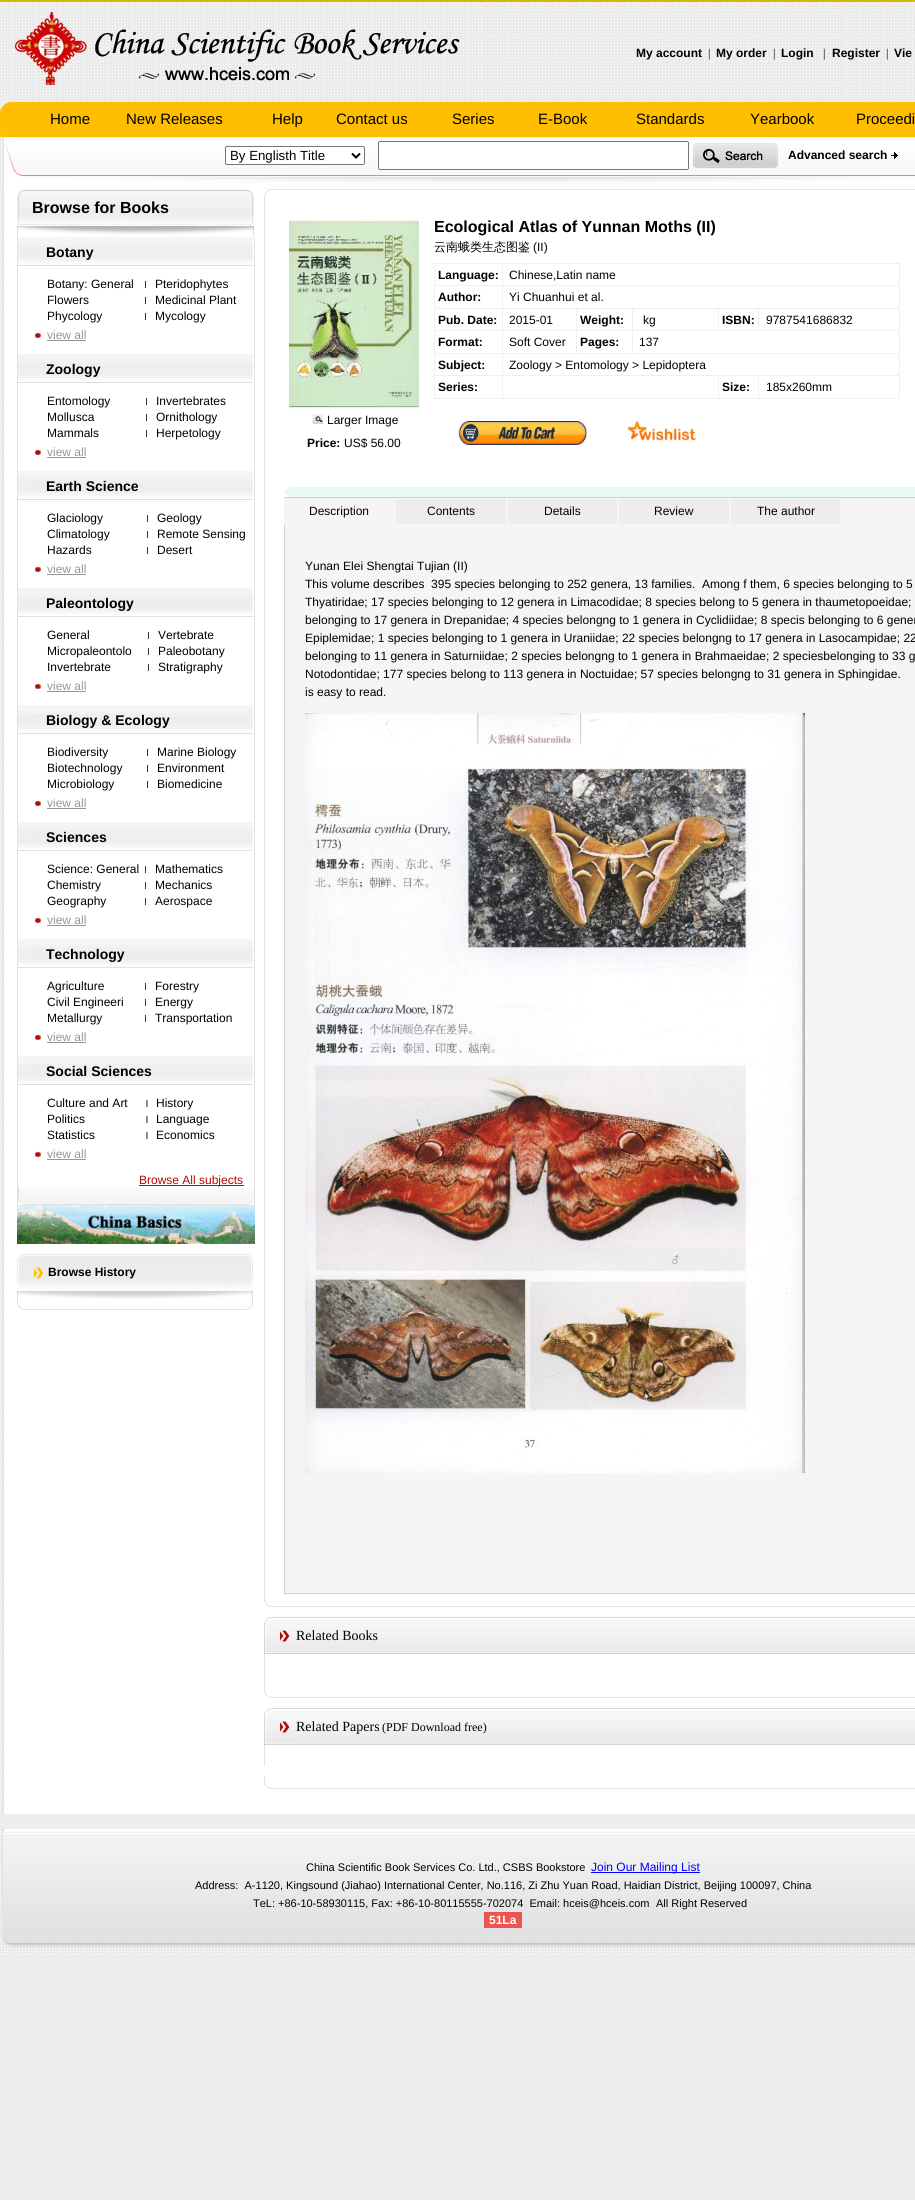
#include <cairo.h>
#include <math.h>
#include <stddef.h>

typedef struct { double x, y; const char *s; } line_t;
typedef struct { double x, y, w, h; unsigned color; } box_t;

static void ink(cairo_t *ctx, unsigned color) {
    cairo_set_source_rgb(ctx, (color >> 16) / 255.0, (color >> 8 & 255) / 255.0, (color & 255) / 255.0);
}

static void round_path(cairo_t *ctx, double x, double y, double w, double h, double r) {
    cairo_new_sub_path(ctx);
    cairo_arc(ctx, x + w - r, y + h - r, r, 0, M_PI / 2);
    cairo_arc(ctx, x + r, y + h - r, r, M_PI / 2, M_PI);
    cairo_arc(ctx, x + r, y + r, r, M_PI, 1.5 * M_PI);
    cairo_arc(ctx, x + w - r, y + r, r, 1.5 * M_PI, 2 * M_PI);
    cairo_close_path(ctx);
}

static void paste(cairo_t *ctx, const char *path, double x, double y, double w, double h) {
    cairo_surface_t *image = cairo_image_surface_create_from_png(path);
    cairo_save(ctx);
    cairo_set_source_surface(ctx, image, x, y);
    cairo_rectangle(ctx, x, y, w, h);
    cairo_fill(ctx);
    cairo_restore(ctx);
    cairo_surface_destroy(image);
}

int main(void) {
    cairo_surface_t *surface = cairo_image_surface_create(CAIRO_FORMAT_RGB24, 915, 2200);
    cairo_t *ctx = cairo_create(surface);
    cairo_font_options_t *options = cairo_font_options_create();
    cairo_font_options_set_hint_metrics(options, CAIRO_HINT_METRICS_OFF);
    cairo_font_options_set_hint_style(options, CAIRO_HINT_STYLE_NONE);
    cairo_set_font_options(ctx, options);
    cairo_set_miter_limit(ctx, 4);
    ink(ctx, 0xEEEEEE);
    cairo_paint(ctx);
    paste(ctx, "media/1.png", 482, 0, 17, 101);
    paste(ctx, "media/2.png", 0, 0, 482, 101);
    paste(ctx, "media/3.png", 499, 0, 416, 101);
    cairo_select_font_face(ctx, "Liberation Sans", CAIRO_FONT_SLANT_NORMAL, CAIRO_FONT_WEIGHT_BOLD);
    cairo_set_font_size(ctx, 12);
    ink(ctx, 0x000000);
    cairo_move_to(ctx, 636, 57);
    cairo_show_text(ctx, "My account");
    cairo_select_font_face(ctx, "Liberation Serif", CAIRO_FONT_SLANT_NORMAL, CAIRO_FONT_WEIGHT_NORMAL);
    cairo_move_to(ctx, 708, 57);
    cairo_show_text(ctx, "|");
    cairo_select_font_face(ctx, "Liberation Sans", CAIRO_FONT_SLANT_NORMAL, CAIRO_FONT_WEIGHT_BOLD);
    cairo_move_to(ctx, 716, 57);
    cairo_show_text(ctx, "My order");
    cairo_select_font_face(ctx, "Liberation Serif", CAIRO_FONT_SLANT_NORMAL, CAIRO_FONT_WEIGHT_NORMAL);
    cairo_move_to(ctx, 773, 57);
    cairo_show_text(ctx, "|");
    cairo_select_font_face(ctx, "Liberation Sans", CAIRO_FONT_SLANT_NORMAL, CAIRO_FONT_WEIGHT_BOLD);
    cairo_move_to(ctx, 781, 57);
    cairo_show_text(ctx, "Login");
    cairo_select_font_face(ctx, "Liberation Serif", CAIRO_FONT_SLANT_NORMAL, CAIRO_FONT_WEIGHT_NORMAL);
    cairo_move_to(ctx, 823, 57);
    cairo_show_text(ctx, "|");
    cairo_select_font_face(ctx, "Liberation Sans", CAIRO_FONT_SLANT_NORMAL, CAIRO_FONT_WEIGHT_BOLD);
    cairo_move_to(ctx, 832, 57);
    cairo_show_text(ctx, "Register");
    cairo_select_font_face(ctx, "Liberation Serif", CAIRO_FONT_SLANT_NORMAL, CAIRO_FONT_WEIGHT_NORMAL);
    cairo_move_to(ctx, 886, 57);
    cairo_show_text(ctx, "|");
    cairo_select_font_face(ctx, "Liberation Sans", CAIRO_FONT_SLANT_NORMAL, CAIRO_FONT_WEIGHT_BOLD);
    cairo_move_to(ctx, 894, 57);
    cairo_show_text(ctx, "Vie");
    paste(ctx, "media/4.png", 0, 102, 915, 35);
    cairo_select_font_face(ctx, "Liberation Sans", CAIRO_FONT_SLANT_NORMAL, CAIRO_FONT_WEIGHT_NORMAL);
    cairo_set_font_size(ctx, 15);
    {
        static const line_t items[] = {
            {50, 124, "Home"},
            {126, 124, "New Releases"},
            {272, 124, "Help"},
            {336, 124, "Contact us"},
            {452, 124, "Series"},
            {538, 124, "E-Book"},
            {636, 124, "Standards"},
            {750, 124, "Yearbook"},
            {856, 124, "Proceedi"},
        };
        for (size_t i = 0; i < sizeof items / sizeof *items; i++) {
            cairo_move_to(ctx, items[i].x, items[i].y);
            cairo_show_text(ctx, items[i].s);
        }
    }
    paste(ctx, "media/5.png", 0, 137, 915, 52);
    ink(ctx, 0xFFFFFF);
    round_path(ctx, 225.5, 146.5, 139, 18, 1.5);
    cairo_fill_preserve(ctx);
    ink(ctx, 0x767676);
    cairo_set_line_width(ctx, 1);
    cairo_stroke(ctx);
    cairo_new_path(ctx);
    cairo_move_to(ctx, 352, 153.5);
    cairo_line_to(ctx, 356, 157.5);
    cairo_line_to(ctx, 360, 153.5);
    ink(ctx, 0x000000);
    cairo_set_line_width(ctx, 2);
    cairo_stroke(ctx);
    cairo_set_font_size(ctx, 13.25);
    cairo_move_to(ctx, 230, 160);
    cairo_show_text(ctx, "By Englisth Title");
    ink(ctx, 0xFFFFFF);
    round_path(ctx, 378.5, 141.5, 310, 28, 1.5);
    cairo_fill_preserve(ctx);
    ink(ctx, 0x767676);
    cairo_set_line_width(ctx, 1);
    cairo_stroke(ctx);
    paste(ctx, "media/6.png", 693, 143, 85, 25);
    cairo_select_font_face(ctx, "Liberation Sans", CAIRO_FONT_SLANT_NORMAL, CAIRO_FONT_WEIGHT_BOLD);
    cairo_set_font_size(ctx, 12);
    ink(ctx, 0x000000);
    cairo_move_to(ctx, 788, 159);
    cairo_show_text(ctx, "Advanced search");
    paste(ctx, "media/7.png", 891, 152, 7, 7);
    paste(ctx, "media/8.png", 0, 189, 915, 1625);
    paste(ctx, "media/9.png", 17, 189, 237, 48);
    cairo_set_font_size(ctx, 16);
    cairo_move_to(ctx, 32, 213);
    cairo_show_text(ctx, "Browse for Books");
    ink(ctx, 0xE1E1E1);
    cairo_rectangle(ctx, 254, 237, 1, 968);
    cairo_fill(ctx);
    cairo_rectangle(ctx, 17, 237, 1, 968);
    cairo_fill(ctx);
    paste(ctx, "media/10.png", 18, 237, 235, 29);
    cairo_set_font_size(ctx, 14);
    ink(ctx, 0x000000);
    cairo_move_to(ctx, 46, 257);
    cairo_show_text(ctx, "Botany");
    cairo_select_font_face(ctx, "Liberation Sans", CAIRO_FONT_SLANT_NORMAL, CAIRO_FONT_WEIGHT_NORMAL);
    cairo_set_font_size(ctx, 12);
    cairo_move_to(ctx, 47, 288);
    cairo_show_text(ctx, "Botany: General");
    ink(ctx, 0x333333);
    cairo_rectangle(ctx, 145, 281, 1, 7);
    cairo_fill(ctx);
    ink(ctx, 0x000000);
    cairo_move_to(ctx, 155, 288);
    cairo_show_text(ctx, "Pteridophytes");
    cairo_move_to(ctx, 47, 304);
    cairo_show_text(ctx, "Flowers");
    ink(ctx, 0x333333);
    cairo_rectangle(ctx, 145, 297, 1, 7);
    cairo_fill(ctx);
    ink(ctx, 0x000000);
    cairo_move_to(ctx, 155, 304);
    cairo_show_text(ctx, "Medicinal Plant");
    cairo_move_to(ctx, 47, 320);
    cairo_show_text(ctx, "Phycology");
    ink(ctx, 0x333333);
    cairo_rectangle(ctx, 145, 313, 1, 7);
    cairo_fill(ctx);
    ink(ctx, 0x000000);
    cairo_move_to(ctx, 155, 320);
    cairo_show_text(ctx, "Mycology");
    paste(ctx, "media/11.png", 35, 332, 7, 7);
    ink(ctx, 0x969696);
    cairo_move_to(ctx, 47, 339);
    cairo_show_text(ctx, "view all");
    cairo_rectangle(ctx, 47, 340, 39, 1);
    cairo_fill(ctx);
    paste(ctx, "media/10.png", 18, 354, 235, 29);
    cairo_select_font_face(ctx, "Liberation Sans", CAIRO_FONT_SLANT_NORMAL, CAIRO_FONT_WEIGHT_BOLD);
    cairo_set_font_size(ctx, 14);
    ink(ctx, 0x000000);
    cairo_move_to(ctx, 46, 374);
    cairo_show_text(ctx, "Zoology");
    cairo_select_font_face(ctx, "Liberation Sans", CAIRO_FONT_SLANT_NORMAL, CAIRO_FONT_WEIGHT_NORMAL);
    cairo_set_font_size(ctx, 12);
    cairo_move_to(ctx, 47, 405);
    cairo_show_text(ctx, "Entomology");
    ink(ctx, 0x333333);
    cairo_rectangle(ctx, 146, 398, 1, 7);
    cairo_fill(ctx);
    ink(ctx, 0x000000);
    cairo_move_to(ctx, 156, 405);
    cairo_show_text(ctx, "Invertebrates");
    cairo_move_to(ctx, 47, 421);
    cairo_show_text(ctx, "Mollusca");
    ink(ctx, 0x333333);
    cairo_rectangle(ctx, 146, 414, 1, 7);
    cairo_fill(ctx);
    ink(ctx, 0x000000);
    cairo_move_to(ctx, 156, 421);
    cairo_show_text(ctx, "Ornithology");
    cairo_move_to(ctx, 47, 437);
    cairo_show_text(ctx, "Mammals");
    ink(ctx, 0x333333);
    cairo_rectangle(ctx, 146, 430, 1, 7);
    cairo_fill(ctx);
    ink(ctx, 0x000000);
    cairo_move_to(ctx, 156, 437);
    cairo_show_text(ctx, "Herpetology");
    paste(ctx, "media/11.png", 35, 449, 7, 7);
    ink(ctx, 0x969696);
    cairo_move_to(ctx, 47, 456);
    cairo_show_text(ctx, "view all");
    cairo_rectangle(ctx, 47, 457, 39, 1);
    cairo_fill(ctx);
    paste(ctx, "media/10.png", 18, 471, 235, 29);
    cairo_select_font_face(ctx, "Liberation Sans", CAIRO_FONT_SLANT_NORMAL, CAIRO_FONT_WEIGHT_BOLD);
    cairo_set_font_size(ctx, 14);
    ink(ctx, 0x000000);
    cairo_move_to(ctx, 46, 491);
    cairo_show_text(ctx, "Earth Science");
    cairo_select_font_face(ctx, "Liberation Sans", CAIRO_FONT_SLANT_NORMAL, CAIRO_FONT_WEIGHT_NORMAL);
    cairo_set_font_size(ctx, 12);
    cairo_move_to(ctx, 47, 522);
    cairo_show_text(ctx, "Glaciology");
    ink(ctx, 0x333333);
    cairo_rectangle(ctx, 147, 515, 1, 7);
    cairo_fill(ctx);
    ink(ctx, 0x000000);
    cairo_move_to(ctx, 157, 522);
    cairo_show_text(ctx, "Geology");
    cairo_move_to(ctx, 47, 538);
    cairo_show_text(ctx, "Climatology");
    ink(ctx, 0x333333);
    cairo_rectangle(ctx, 147, 531, 1, 7);
    cairo_fill(ctx);
    ink(ctx, 0x000000);
    cairo_move_to(ctx, 157, 538);
    cairo_show_text(ctx, "Remote Sensing");
    cairo_move_to(ctx, 47, 554);
    cairo_show_text(ctx, "Hazards");
    ink(ctx, 0x333333);
    cairo_rectangle(ctx, 147, 547, 1, 7);
    cairo_fill(ctx);
    ink(ctx, 0x000000);
    cairo_move_to(ctx, 157, 554);
    cairo_show_text(ctx, "Desert");
    paste(ctx, "media/11.png", 35, 566, 7, 7);
    ink(ctx, 0x969696);
    cairo_move_to(ctx, 47, 573);
    cairo_show_text(ctx, "view all");
    cairo_rectangle(ctx, 47, 574, 39, 1);
    cairo_fill(ctx);
    paste(ctx, "media/10.png", 18, 588, 235, 29);
    cairo_select_font_face(ctx, "Liberation Sans", CAIRO_FONT_SLANT_NORMAL, CAIRO_FONT_WEIGHT_BOLD);
    cairo_set_font_size(ctx, 14);
    ink(ctx, 0x000000);
    cairo_move_to(ctx, 46, 608);
    cairo_show_text(ctx, "Paleontology");
    cairo_select_font_face(ctx, "Liberation Sans", CAIRO_FONT_SLANT_NORMAL, CAIRO_FONT_WEIGHT_NORMAL);
    cairo_set_font_size(ctx, 12);
    cairo_move_to(ctx, 47, 639);
    cairo_show_text(ctx, "General");
    ink(ctx, 0x333333);
    cairo_rectangle(ctx, 148, 632, 1, 7);
    cairo_fill(ctx);
    ink(ctx, 0x000000);
    cairo_move_to(ctx, 158, 639);
    cairo_show_text(ctx, "Vertebrate");
    cairo_move_to(ctx, 47, 655);
    cairo_show_text(ctx, "Micropaleontolo");
    ink(ctx, 0x333333);
    cairo_rectangle(ctx, 148, 648, 1, 7);
    cairo_fill(ctx);
    ink(ctx, 0x000000);
    cairo_move_to(ctx, 158, 655);
    cairo_show_text(ctx, "Paleobotany");
    cairo_move_to(ctx, 47, 671);
    cairo_show_text(ctx, "Invertebrate");
    ink(ctx, 0x333333);
    cairo_rectangle(ctx, 148, 664, 1, 7);
    cairo_fill(ctx);
    ink(ctx, 0x000000);
    cairo_move_to(ctx, 158, 671);
    cairo_show_text(ctx, "Stratigraphy");
    paste(ctx, "media/11.png", 35, 683, 7, 7);
    ink(ctx, 0x969696);
    cairo_move_to(ctx, 47, 690);
    cairo_show_text(ctx, "view all");
    cairo_rectangle(ctx, 47, 691, 39, 1);
    cairo_fill(ctx);
    paste(ctx, "media/10.png", 18, 705, 235, 29);
    cairo_select_font_face(ctx, "Liberation Sans", CAIRO_FONT_SLANT_NORMAL, CAIRO_FONT_WEIGHT_BOLD);
    cairo_set_font_size(ctx, 14);
    ink(ctx, 0x000000);
    cairo_move_to(ctx, 46, 725);
    cairo_show_text(ctx, "Biology & Ecology");
    cairo_select_font_face(ctx, "Liberation Sans", CAIRO_FONT_SLANT_NORMAL, CAIRO_FONT_WEIGHT_NORMAL);
    cairo_set_font_size(ctx, 12);
    cairo_move_to(ctx, 47, 756);
    cairo_show_text(ctx, "Biodiversity");
    ink(ctx, 0x333333);
    cairo_rectangle(ctx, 147, 749, 1, 7);
    cairo_fill(ctx);
    ink(ctx, 0x000000);
    cairo_move_to(ctx, 157, 756);
    cairo_show_text(ctx, "Marine Biology");
    cairo_move_to(ctx, 47, 772);
    cairo_show_text(ctx, "Biotechnology");
    ink(ctx, 0x333333);
    cairo_rectangle(ctx, 147, 765, 1, 7);
    cairo_fill(ctx);
    ink(ctx, 0x000000);
    cairo_move_to(ctx, 157, 772);
    cairo_show_text(ctx, "Environment");
    cairo_move_to(ctx, 47, 788);
    cairo_show_text(ctx, "Microbiology");
    ink(ctx, 0x333333);
    cairo_rectangle(ctx, 147, 781, 1, 7);
    cairo_fill(ctx);
    ink(ctx, 0x000000);
    cairo_move_to(ctx, 157, 788);
    cairo_show_text(ctx, "Biomedicine");
    paste(ctx, "media/11.png", 35, 800, 7, 7);
    ink(ctx, 0x969696);
    cairo_move_to(ctx, 47, 807);
    cairo_show_text(ctx, "view all");
    cairo_rectangle(ctx, 47, 808, 39, 1);
    cairo_fill(ctx);
    paste(ctx, "media/10.png", 18, 822, 235, 29);
    cairo_select_font_face(ctx, "Liberation Sans", CAIRO_FONT_SLANT_NORMAL, CAIRO_FONT_WEIGHT_BOLD);
    cairo_set_font_size(ctx, 14);
    ink(ctx, 0x000000);
    cairo_move_to(ctx, 46, 842);
    cairo_show_text(ctx, "Sciences");
    cairo_select_font_face(ctx, "Liberation Sans", CAIRO_FONT_SLANT_NORMAL, CAIRO_FONT_WEIGHT_NORMAL);
    cairo_set_font_size(ctx, 12);
    cairo_move_to(ctx, 47, 873);
    cairo_show_text(ctx, "Science: General");
    ink(ctx, 0x333333);
    cairo_rectangle(ctx, 145, 866, 1, 7);
    cairo_fill(ctx);
    ink(ctx, 0x000000);
    cairo_move_to(ctx, 155, 873);
    cairo_show_text(ctx, "Mathematics");
    cairo_move_to(ctx, 47, 889);
    cairo_show_text(ctx, "Chemistry");
    ink(ctx, 0x333333);
    cairo_rectangle(ctx, 145, 882, 1, 7);
    cairo_fill(ctx);
    ink(ctx, 0x000000);
    cairo_move_to(ctx, 155, 889);
    cairo_show_text(ctx, "Mechanics");
    cairo_move_to(ctx, 47, 905);
    cairo_show_text(ctx, "Geography");
    ink(ctx, 0x333333);
    cairo_rectangle(ctx, 145, 898, 1, 7);
    cairo_fill(ctx);
    ink(ctx, 0x000000);
    cairo_move_to(ctx, 155, 905);
    cairo_show_text(ctx, "Aerospace");
    paste(ctx, "media/11.png", 35, 917, 7, 7);
    ink(ctx, 0x969696);
    cairo_move_to(ctx, 47, 924);
    cairo_show_text(ctx, "view all");
    cairo_rectangle(ctx, 47, 925, 39, 1);
    cairo_fill(ctx);
    paste(ctx, "media/10.png", 18, 939, 235, 29);
    cairo_select_font_face(ctx, "Liberation Sans", CAIRO_FONT_SLANT_NORMAL, CAIRO_FONT_WEIGHT_BOLD);
    cairo_set_font_size(ctx, 14);
    ink(ctx, 0x000000);
    cairo_move_to(ctx, 46, 959);
    cairo_show_text(ctx, "Technology");
    cairo_select_font_face(ctx, "Liberation Sans", CAIRO_FONT_SLANT_NORMAL, CAIRO_FONT_WEIGHT_NORMAL);
    cairo_set_font_size(ctx, 12);
    cairo_move_to(ctx, 47, 990);
    cairo_show_text(ctx, "Agriculture");
    ink(ctx, 0x333333);
    cairo_rectangle(ctx, 145, 983, 1, 7);
    cairo_fill(ctx);
    ink(ctx, 0x000000);
    cairo_move_to(ctx, 155, 990);
    cairo_show_text(ctx, "Forestry");
    cairo_move_to(ctx, 47, 1006);
    cairo_show_text(ctx, "Civil Engineeri");
    ink(ctx, 0x333333);
    cairo_rectangle(ctx, 145, 999, 1, 7);
    cairo_fill(ctx);
    ink(ctx, 0x000000);
    cairo_move_to(ctx, 155, 1006);
    cairo_show_text(ctx, "Energy");
    cairo_move_to(ctx, 47, 1022);
    cairo_show_text(ctx, "Metallurgy");
    ink(ctx, 0x333333);
    cairo_rectangle(ctx, 145, 1015, 1, 7);
    cairo_fill(ctx);
    ink(ctx, 0x000000);
    cairo_move_to(ctx, 155, 1022);
    cairo_show_text(ctx, "Transportation");
    paste(ctx, "media/11.png", 35, 1034, 7, 7);
    ink(ctx, 0x969696);
    cairo_move_to(ctx, 47, 1041);
    cairo_show_text(ctx, "view all");
    cairo_rectangle(ctx, 47, 1042, 39, 1);
    cairo_fill(ctx);
    paste(ctx, "media/10.png", 18, 1056, 235, 29);
    cairo_select_font_face(ctx, "Liberation Sans", CAIRO_FONT_SLANT_NORMAL, CAIRO_FONT_WEIGHT_BOLD);
    cairo_set_font_size(ctx, 14);
    ink(ctx, 0x000000);
    cairo_move_to(ctx, 46, 1076);
    cairo_show_text(ctx, "Social Sciences");
    cairo_select_font_face(ctx, "Liberation Sans", CAIRO_FONT_SLANT_NORMAL, CAIRO_FONT_WEIGHT_NORMAL);
    cairo_set_font_size(ctx, 12);
    cairo_move_to(ctx, 47, 1107);
    cairo_show_text(ctx, "Culture and Art");
    paste(ctx, "media/12.png", 146, 1100, 2, 7);
    cairo_move_to(ctx, 156, 1107);
    cairo_show_text(ctx, "History");
    cairo_move_to(ctx, 47, 1123);
    cairo_show_text(ctx, "Politics");
    paste(ctx, "media/12.png", 146, 1116, 2, 7);
    cairo_move_to(ctx, 156, 1123);
    cairo_show_text(ctx, "Language");
    cairo_move_to(ctx, 47, 1139);
    cairo_show_text(ctx, "Statistics");
    paste(ctx, "media/12.png", 146, 1132, 2, 7);
    cairo_move_to(ctx, 156, 1139);
    cairo_show_text(ctx, "Economics");
    paste(ctx, "media/11.png", 35, 1151, 7, 7);
    ink(ctx, 0x969696);
    cairo_move_to(ctx, 47, 1158);
    cairo_show_text(ctx, "view all");
    cairo_rectangle(ctx, 47, 1159, 39, 1);
    cairo_fill(ctx);
    ink(ctx, 0xAF0B03);
    cairo_rectangle(ctx, 139, 1185, 105, 1);
    cairo_fill(ctx);
    cairo_move_to(ctx, 139, 1184);
    cairo_show_text(ctx, "Browse All subjects");
    paste(ctx, "media/13.png", 18, 1187, 236, 18);
    paste(ctx, "media/14.png", 17, 1205, 238, 39);
    paste(ctx, "media/15.png", 17, 1254, 191, 49);
    cairo_select_font_face(ctx, "Liberation Sans", CAIRO_FONT_SLANT_NORMAL, CAIRO_FONT_WEIGHT_BOLD);
    ink(ctx, 0x000000);
    cairo_move_to(ctx, 48, 1276);
    cairo_show_text(ctx, "Browse History");
    paste(ctx, "media/16.png", 208, 1254, 45, 49);
    paste(ctx, "media/17.png", 17, 1303, 236, 7);
    paste(ctx, "media/18.png", 264, 189, 651, 18);
    ink(ctx, 0xE1E1E1);
    cairo_rectangle(ctx, 264, 207, 1, 1387);
    cairo_fill(ctx);
    cairo_set_font_size(ctx, 16);
    ink(ctx, 0x000000);
    cairo_move_to(ctx, 434, 232);
    cairo_show_text(ctx, "Ecological Atlas of Yunnan Moths (II)");
    cairo_select_font_face(ctx, "WenQuanYi Zen Hei Medium", CAIRO_FONT_SLANT_NORMAL, CAIRO_FONT_WEIGHT_NORMAL);
    cairo_set_font_size(ctx, 12);
    cairo_move_to(ctx, 434, 251);
    cairo_show_text(ctx, "云南蛾类生态图鉴");
    cairo_select_font_face(ctx, "Liberation Sans", CAIRO_FONT_SLANT_NORMAL, CAIRO_FONT_WEIGHT_NORMAL);
    cairo_move_to(ctx, 533, 251);
    cairo_show_text(ctx, "(II)");
    ink(ctx, 0xF0F0F0);
    cairo_rectangle(ctx, 434, 263, 466, 136);
    cairo_fill(ctx);
    ink(ctx, 0xFFFFFF);
    cairo_rectangle(ctx, 435, 264, 67, 21);
    cairo_fill(ctx);
    cairo_select_font_face(ctx, "Liberation Sans", CAIRO_FONT_SLANT_NORMAL, CAIRO_FONT_WEIGHT_BOLD);
    ink(ctx, 0x000000);
    cairo_move_to(ctx, 438, 279);
    cairo_show_text(ctx, "Language:");
    ink(ctx, 0xFFFFFF);
    cairo_rectangle(ctx, 503, 264, 396, 21);
    cairo_fill(ctx);
    cairo_select_font_face(ctx, "Liberation Sans", CAIRO_FONT_SLANT_NORMAL, CAIRO_FONT_WEIGHT_NORMAL);
    ink(ctx, 0x000000);
    cairo_move_to(ctx, 509, 279);
    cairo_show_text(ctx, "Chinese,Latin name");
    ink(ctx, 0xFFFFFF);
    cairo_rectangle(ctx, 435, 286, 67, 22);
    cairo_fill(ctx);
    cairo_select_font_face(ctx, "Liberation Sans", CAIRO_FONT_SLANT_NORMAL, CAIRO_FONT_WEIGHT_BOLD);
    ink(ctx, 0x000000);
    cairo_move_to(ctx, 438, 301);
    cairo_show_text(ctx, "Author:");
    ink(ctx, 0xFFFFFF);
    cairo_rectangle(ctx, 503, 286, 396, 22);
    cairo_fill(ctx);
    cairo_select_font_face(ctx, "Liberation Sans", CAIRO_FONT_SLANT_NORMAL, CAIRO_FONT_WEIGHT_NORMAL);
    ink(ctx, 0x000000);
    cairo_move_to(ctx, 509, 301);
    cairo_show_text(ctx, "Yi Chuanhui et al.");
    ink(ctx, 0xFFFFFF);
    cairo_rectangle(ctx, 435, 309, 67, 21);
    cairo_fill(ctx);
    cairo_select_font_face(ctx, "Liberation Sans", CAIRO_FONT_SLANT_NORMAL, CAIRO_FONT_WEIGHT_BOLD);
    ink(ctx, 0x000000);
    cairo_move_to(ctx, 438, 324);
    cairo_show_text(ctx, "Pub. Date:");
    ink(ctx, 0xFFFFFF);
    cairo_rectangle(ctx, 503, 309, 73, 21);
    cairo_fill(ctx);
    cairo_select_font_face(ctx, "Liberation Sans", CAIRO_FONT_SLANT_NORMAL, CAIRO_FONT_WEIGHT_NORMAL);
    ink(ctx, 0x000000);
    cairo_move_to(ctx, 509, 324);
    cairo_show_text(ctx, "2015-01");
    ink(ctx, 0xFFFFFF);
    cairo_rectangle(ctx, 577, 309, 55, 21);
    cairo_fill(ctx);
    cairo_select_font_face(ctx, "Liberation Sans", CAIRO_FONT_SLANT_NORMAL, CAIRO_FONT_WEIGHT_BOLD);
    ink(ctx, 0x000000);
    cairo_move_to(ctx, 580, 324);
    cairo_show_text(ctx, "Weight:");
    ink(ctx, 0xFFFFFF);
    cairo_rectangle(ctx, 633, 309, 85, 21);
    cairo_fill(ctx);
    cairo_select_font_face(ctx, "Liberation Sans", CAIRO_FONT_SLANT_NORMAL, CAIRO_FONT_WEIGHT_NORMAL);
    ink(ctx, 0x000000);
    cairo_move_to(ctx, 643, 324);
    cairo_show_text(ctx, "kg");
    ink(ctx, 0xFFFFFF);
    cairo_rectangle(ctx, 719, 309, 39, 21);
    cairo_fill(ctx);
    cairo_select_font_face(ctx, "Liberation Sans", CAIRO_FONT_SLANT_NORMAL, CAIRO_FONT_WEIGHT_BOLD);
    ink(ctx, 0x000000);
    cairo_move_to(ctx, 722, 324);
    cairo_show_text(ctx, "ISBN:");
    ink(ctx, 0xFFFFFF);
    cairo_rectangle(ctx, 759, 309, 140, 21);
    cairo_fill(ctx);
    cairo_select_font_face(ctx, "Liberation Sans", CAIRO_FONT_SLANT_NORMAL, CAIRO_FONT_WEIGHT_NORMAL);
    ink(ctx, 0x000000);
    cairo_move_to(ctx, 766, 324);
    cairo_show_text(ctx, "9787541686832");
    ink(ctx, 0xFFFFFF);
    cairo_rectangle(ctx, 435, 331, 67, 22);
    cairo_fill(ctx);
    cairo_select_font_face(ctx, "Liberation Sans", CAIRO_FONT_SLANT_NORMAL, CAIRO_FONT_WEIGHT_BOLD);
    ink(ctx, 0x000000);
    cairo_move_to(ctx, 438, 346);
    cairo_show_text(ctx, "Format:");
    ink(ctx, 0xFFFFFF);
    cairo_rectangle(ctx, 503, 331, 73, 22);
    cairo_fill(ctx);
    cairo_select_font_face(ctx, "Liberation Sans", CAIRO_FONT_SLANT_NORMAL, CAIRO_FONT_WEIGHT_NORMAL);
    ink(ctx, 0x000000);
    cairo_move_to(ctx, 509, 346);
    cairo_show_text(ctx, "Soft Cover");
    ink(ctx, 0xFFFFFF);
    cairo_rectangle(ctx, 577, 331, 55, 22);
    cairo_fill(ctx);
    cairo_select_font_face(ctx, "Liberation Sans", CAIRO_FONT_SLANT_NORMAL, CAIRO_FONT_WEIGHT_BOLD);
    ink(ctx, 0x000000);
    cairo_move_to(ctx, 580, 346);
    cairo_show_text(ctx, "Pages:");
    ink(ctx, 0xFFFFFF);
    cairo_rectangle(ctx, 633, 331, 266, 22);
    cairo_fill(ctx);
    cairo_select_font_face(ctx, "Liberation Sans", CAIRO_FONT_SLANT_NORMAL, CAIRO_FONT_WEIGHT_NORMAL);
    ink(ctx, 0x000000);
    cairo_move_to(ctx, 639, 346);
    cairo_show_text(ctx, "137");
    ink(ctx, 0xFFFFFF);
    cairo_rectangle(ctx, 435, 354, 67, 21);
    cairo_fill(ctx);
    cairo_select_font_face(ctx, "Liberation Sans", CAIRO_FONT_SLANT_NORMAL, CAIRO_FONT_WEIGHT_BOLD);
    ink(ctx, 0x000000);
    cairo_move_to(ctx, 438, 369);
    cairo_show_text(ctx, "Subject:");
    ink(ctx, 0xFFFFFF);
    cairo_rectangle(ctx, 503, 354, 396, 21);
    cairo_fill(ctx);
    cairo_select_font_face(ctx, "Liberation Sans", CAIRO_FONT_SLANT_NORMAL, CAIRO_FONT_WEIGHT_NORMAL);
    ink(ctx, 0x000000);
    cairo_move_to(ctx, 509, 369);
    cairo_show_text(ctx, "Zoology > Entomology > Lepidoptera");
    ink(ctx, 0xFFFFFF);
    cairo_rectangle(ctx, 435, 376, 67, 22);
    cairo_fill(ctx);
    cairo_select_font_face(ctx, "Liberation Sans", CAIRO_FONT_SLANT_NORMAL, CAIRO_FONT_WEIGHT_BOLD);
    ink(ctx, 0x000000);
    cairo_move_to(ctx, 438, 391);
    cairo_show_text(ctx, "Series:");
    ink(ctx, 0xFFFFFF);
    cairo_rectangle(ctx, 503, 376, 215, 22);
    cairo_fill(ctx);
    cairo_rectangle(ctx, 719, 376, 39, 22);
    cairo_fill(ctx);
    ink(ctx, 0x000000);
    cairo_move_to(ctx, 722, 391);
    cairo_show_text(ctx, "Size:");
    ink(ctx, 0xFFFFFF);
    cairo_rectangle(ctx, 759, 376, 140, 22);
    cairo_fill(ctx);
    cairo_select_font_face(ctx, "Liberation Sans", CAIRO_FONT_SLANT_NORMAL, CAIRO_FONT_WEIGHT_NORMAL);
    ink(ctx, 0x000000);
    cairo_move_to(ctx, 766, 391);
    cairo_show_text(ctx, "185x260mm");
    paste(ctx, "media/19.png", 458, 421, 129, 24);
    paste(ctx, "media/20.png", 626, 419, 71, 23);
    paste(ctx, "media/21.png", 289, 219, 130, 190);
    paste(ctx, "media/22.png", 312, 414, 11, 10);
    cairo_move_to(ctx, 327, 424);
    cairo_show_text(ctx, "Larger Image");
    cairo_select_font_face(ctx, "Liberation Sans", CAIRO_FONT_SLANT_NORMAL, CAIRO_FONT_WEIGHT_BOLD);
    cairo_move_to(ctx, 307, 447);
    cairo_show_text(ctx, "Price:");
    cairo_select_font_face(ctx, "Liberation Sans", CAIRO_FONT_SLANT_NORMAL, CAIRO_FONT_WEIGHT_NORMAL);
    cairo_move_to(ctx, 344, 447);
    cairo_show_text(ctx, "US$ 56.00");
    {
        static const box_t items[] = {
            {289, 487, 626, 1, 0xE7FAF7},
            {287, 488, 628, 1, 0xE7FAF7},
            {286, 489, 629, 1, 0xE7FAF7},
            {285, 490, 630, 4, 0xE7FAF7},
            {286, 494, 629, 1, 0xE7FAF7},
            {287, 495, 628, 1, 0xE7FAF7},
            {289, 496, 626, 1, 0xE7FAF7},
        };
        for (size_t i = 0; i < sizeof items / sizeof *items; i++) {
            ink(ctx, items[i].color);
            cairo_rectangle(ctx, items[i].x, items[i].y, items[i].w, items[i].h);
            cairo_fill(ctx);
        }
    }
    cairo_rectangle(ctx, 284.5, 497.5, 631, 1096);
    ink(ctx, 0xCFCFCF);
    cairo_stroke(ctx);
    ink(ctx, 0xF5F5F5);
    cairo_rectangle(ctx, 285, 498, 630, 1095);
    cairo_fill(ctx);
    cairo_rectangle(ctx, 284, 498, 1, 27);
    cairo_fill(ctx);
    ink(ctx, 0x000000);
    cairo_move_to(ctx, 309, 515);
    cairo_show_text(ctx, "Description");
    ink(ctx, 0xEEECEC);
    cairo_rectangle(ctx, 396, 499, 110, 25);
    cairo_fill(ctx);
    ink(ctx, 0x000000);
    cairo_move_to(ctx, 427, 515);
    cairo_show_text(ctx, "Contents");
    ink(ctx, 0xEEECEC);
    cairo_rectangle(ctx, 508, 499, 109, 25);
    cairo_fill(ctx);
    ink(ctx, 0x000000);
    cairo_move_to(ctx, 544, 515);
    cairo_show_text(ctx, "Details");
    ink(ctx, 0xEEECEC);
    cairo_rectangle(ctx, 619, 499, 110, 25);
    cairo_fill(ctx);
    ink(ctx, 0x000000);
    cairo_move_to(ctx, 654, 515);
    cairo_show_text(ctx, "Review");
    ink(ctx, 0xEEECEC);
    cairo_rectangle(ctx, 731, 499, 109, 25);
    cairo_fill(ctx);
    ink(ctx, 0x000000);
    {
        static const line_t items[] = {
            {757, 515, "The author"},
            {305, 570, "Yunan Elei Shengtai Tujian (II)"},
            {305, 588, "This volume describes  395 species belonging to 252 genera, 13 families.  Among f them, 6 species belonging to 5"},
            {305, 606, "Thyatiridae; 17 species belonging to 12 genera in Limacodidae; 8 species belong to 5 genera in thaumetopoeidae;"},
            {305, 624, "belonging to 17 genera in Drepanidae; 4 species belongng to 1 genera in Cyclidiidae; 8 specis belonging to 6 gener"},
            {305, 642, "Epiplemidae; 1 species belonging to 1 genera in Uraniidae; 22 species belongng to 17 genera in Lasocampidae; 22"},
            {305, 660, "belonging to 11 genera in Saturniidae; 2 species belongng to 1 genera in Brahmaeidae; 2 speciesbelonging to 33 g"},
            {305, 678, "Notodontidae; 177 species belong to 113 genera in Noctuidae; 57 species belongng to 31 genera in Sphingidae."},
            {305, 696, "is easy to read."},
        };
        for (size_t i = 0; i < sizeof items / sizeof *items; i++) {
            cairo_move_to(ctx, items[i].x, items[i].y);
            cairo_show_text(ctx, items[i].s);
        }
    }
    paste(ctx, "media/23.png", 305, 713, 500, 760);
    paste(ctx, "media/24.png", 264, 1594, 651, 13);
    paste(ctx, "media/25.png", 264, 1617, 651, 58);
    cairo_select_font_face(ctx, "Liberation Serif", CAIRO_FONT_SLANT_NORMAL, CAIRO_FONT_WEIGHT_NORMAL);
    cairo_set_font_size(ctx, 14);
    cairo_move_to(ctx, 296, 1640);
    cairo_show_text(ctx, "Related Books");
    ink(ctx, 0xE1E1E1);
    cairo_rectangle(ctx, 264, 1675, 1, 10);
    cairo_fill(ctx);
    paste(ctx, "media/24.png", 264, 1685, 651, 13);
    paste(ctx, "media/25.png", 264, 1708, 651, 58);
    ink(ctx, 0x000000);
    cairo_move_to(ctx, 296, 1731);
    cairo_show_text(ctx, "Related Papers");
    cairo_set_font_size(ctx, 12);
    cairo_move_to(ctx, 382, 1731);
    cairo_show_text(ctx, "(PDF Download free)");
    paste(ctx, "media/24.png", 264, 1776, 651, 13);
    paste(ctx, "media/26.png", 0, 1829, 915, 128);
    cairo_select_font_face(ctx, "Liberation Sans", CAIRO_FONT_SLANT_NORMAL, CAIRO_FONT_WEIGHT_NORMAL);
    cairo_set_font_size(ctx, 11);
    cairo_move_to(ctx, 306, 1871);
    cairo_show_text(ctx, "China Scientific Book Services Co. Ltd., CSBS Bookstore");
    ink(ctx, 0x0000FF);
    cairo_rectangle(ctx, 591, 1872, 109, 1);
    cairo_fill(ctx);
    cairo_set_font_size(ctx, 12);
    cairo_move_to(ctx, 591, 1871);
    cairo_show_text(ctx, "Join Our Mailing List");
    cairo_set_font_size(ctx, 11);
    ink(ctx, 0x000000);
    {
        static const line_t items[] = {
            {195, 1889, "Address:  A-1120, Kingsound (Jiahao) International Center, No.116, Zi Zhu Yuan Road, Haidian District, Beijing 100097, China"},
            {253, 1907, "TeL: +86-10-58930115, Fax: +86-10-80115555-702074  Email: hceis@hceis.com"},
            {656, 1907, "All Right Reserved"},
        };
        for (size_t i = 0; i < sizeof items / sizeof *items; i++) {
            cairo_move_to(ctx, items[i].x, items[i].y);
            cairo_show_text(ctx, items[i].s);
        }
    }
    ink(ctx, 0xEF5350);
    cairo_rectangle(ctx, 484, 1912, 38, 16);
    cairo_fill(ctx);
    cairo_select_font_face(ctx, "Liberation Sans", CAIRO_FONT_SLANT_NORMAL, CAIRO_FONT_WEIGHT_BOLD);
    cairo_set_font_size(ctx, 12);
    ink(ctx, 0xFFFFFF);
    cairo_move_to(ctx, 489, 1924);
    cairo_show_text(ctx, "51La");
    cairo_surface_write_to_png(surface, "image.png");
    cairo_font_options_destroy(options);
    cairo_destroy(ctx);
    cairo_surface_destroy(surface);
    return 0;
}
